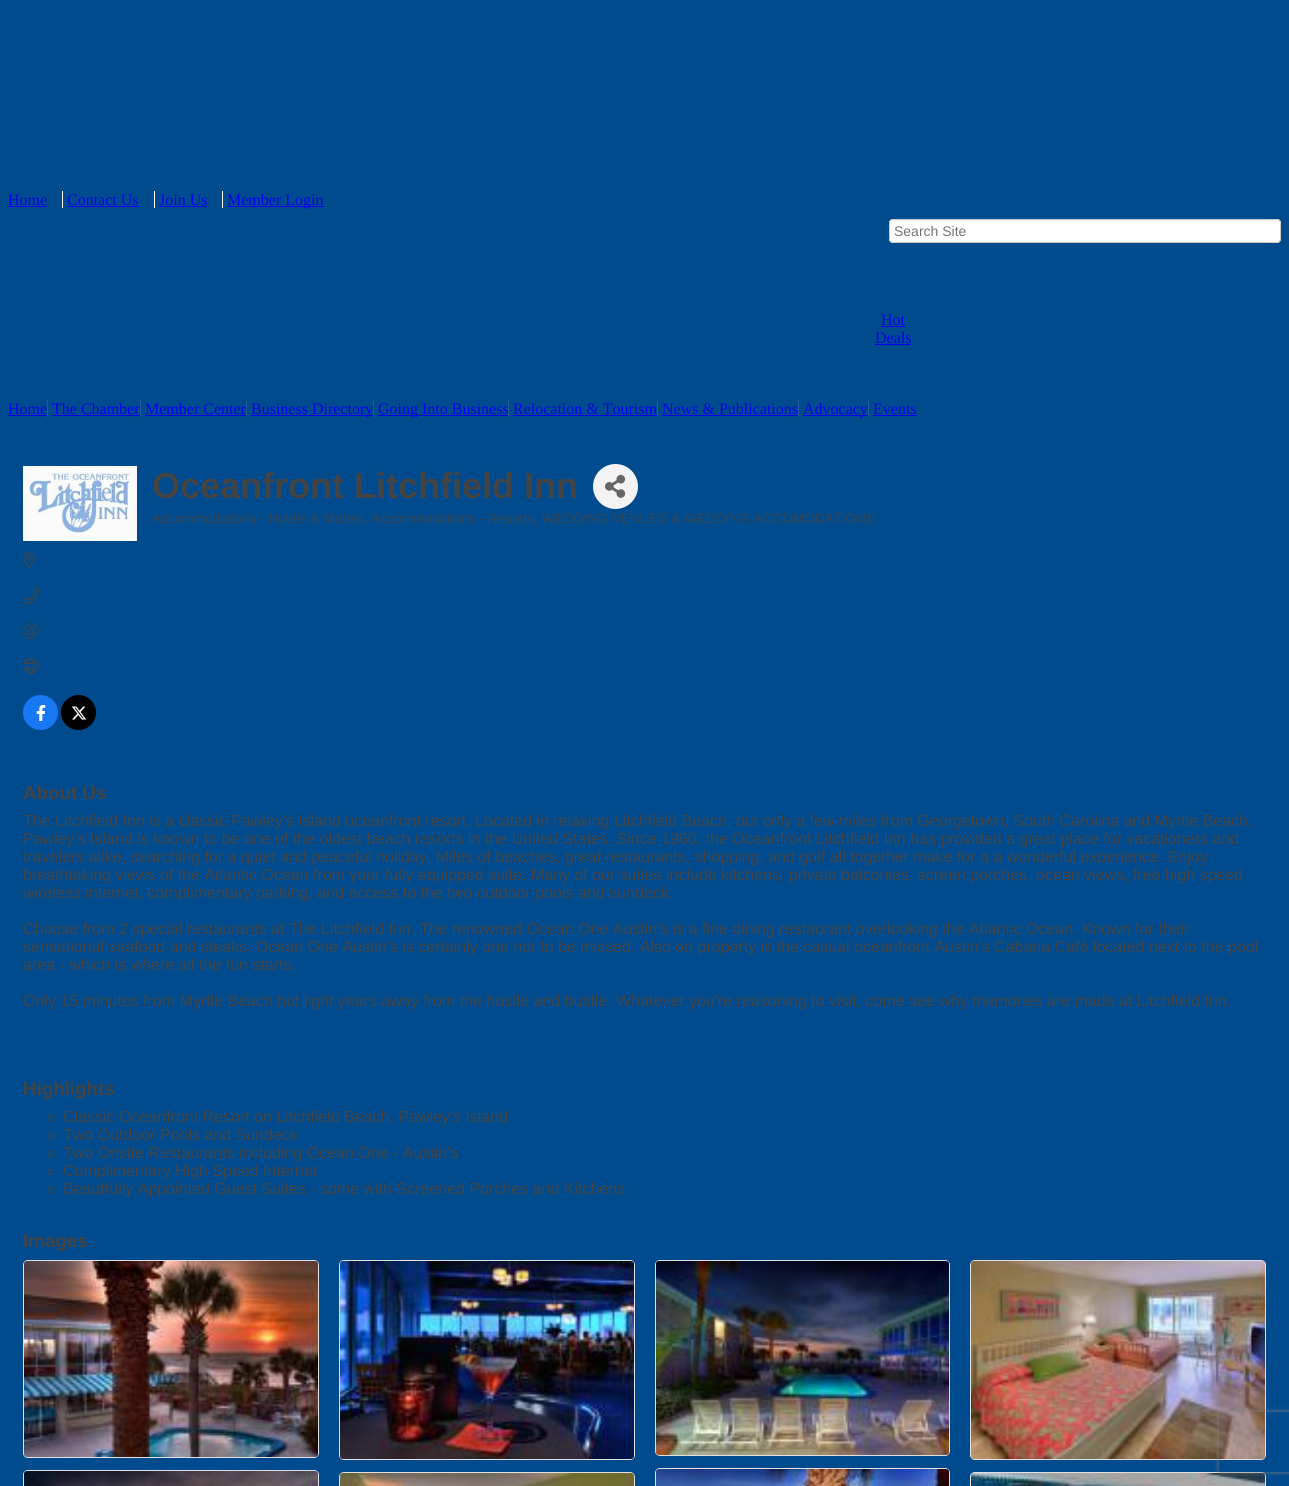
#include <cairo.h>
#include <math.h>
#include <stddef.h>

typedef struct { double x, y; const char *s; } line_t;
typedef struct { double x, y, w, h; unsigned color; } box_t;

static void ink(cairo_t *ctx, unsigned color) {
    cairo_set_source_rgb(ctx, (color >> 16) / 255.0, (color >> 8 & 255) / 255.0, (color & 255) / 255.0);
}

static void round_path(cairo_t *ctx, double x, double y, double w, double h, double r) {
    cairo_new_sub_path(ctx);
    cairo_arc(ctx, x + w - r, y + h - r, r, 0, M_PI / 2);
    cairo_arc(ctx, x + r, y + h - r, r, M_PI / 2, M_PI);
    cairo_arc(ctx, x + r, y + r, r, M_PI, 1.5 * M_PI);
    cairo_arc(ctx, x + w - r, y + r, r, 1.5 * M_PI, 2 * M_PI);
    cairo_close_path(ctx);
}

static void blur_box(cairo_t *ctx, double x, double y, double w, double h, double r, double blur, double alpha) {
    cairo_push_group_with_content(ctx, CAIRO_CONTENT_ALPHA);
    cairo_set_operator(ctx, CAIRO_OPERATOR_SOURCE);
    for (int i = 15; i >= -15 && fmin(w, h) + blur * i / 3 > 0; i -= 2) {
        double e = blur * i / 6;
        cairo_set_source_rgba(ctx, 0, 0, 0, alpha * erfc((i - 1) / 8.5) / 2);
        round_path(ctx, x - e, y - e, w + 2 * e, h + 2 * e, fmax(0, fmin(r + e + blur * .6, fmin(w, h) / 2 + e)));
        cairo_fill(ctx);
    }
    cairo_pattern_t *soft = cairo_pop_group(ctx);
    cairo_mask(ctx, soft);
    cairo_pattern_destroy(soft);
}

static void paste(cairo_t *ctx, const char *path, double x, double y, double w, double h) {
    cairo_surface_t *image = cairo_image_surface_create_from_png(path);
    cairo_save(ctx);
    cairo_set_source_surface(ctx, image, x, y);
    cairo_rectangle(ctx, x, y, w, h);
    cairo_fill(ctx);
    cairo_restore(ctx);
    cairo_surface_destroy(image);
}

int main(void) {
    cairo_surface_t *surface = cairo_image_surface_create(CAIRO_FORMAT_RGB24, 1289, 1486);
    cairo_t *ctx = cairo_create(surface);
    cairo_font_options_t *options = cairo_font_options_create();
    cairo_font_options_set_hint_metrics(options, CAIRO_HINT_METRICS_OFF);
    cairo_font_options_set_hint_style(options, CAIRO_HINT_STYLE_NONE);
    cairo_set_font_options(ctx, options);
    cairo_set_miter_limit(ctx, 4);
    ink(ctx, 0x004B8E);
    cairo_paint(ctx);
    cairo_select_font_face(ctx, "Liberation Serif", CAIRO_FONT_SLANT_NORMAL, CAIRO_FONT_WEIGHT_NORMAL);
    cairo_set_font_size(ctx, 16);
    ink(ctx, 0x0000EE);
    cairo_move_to(ctx, 8, 205);
    cairo_show_text(ctx, "Home");
    ink(ctx, 0xFFFFFF);
    cairo_rectangle(ctx, 62, 191, 1, 17);
    cairo_fill(ctx);
    ink(ctx, 0x0000EE);
    cairo_rectangle(ctx, 8, 206, 39, 1);
    cairo_fill(ctx);
    cairo_move_to(ctx, 67, 205);
    cairo_show_text(ctx, "Contact Us");
    ink(ctx, 0xFFFFFF);
    cairo_rectangle(ctx, 154, 191, 1, 17);
    cairo_fill(ctx);
    ink(ctx, 0x0000EE);
    cairo_rectangle(ctx, 67, 206, 72, 1);
    cairo_fill(ctx);
    cairo_move_to(ctx, 159, 205);
    cairo_show_text(ctx, "Join Us");
    {
        static const box_t items[] = {
            {222, 191, 1, 17, 0xFFFFFF},
            {159, 206, 48, 1, 0x0000EE},
            {227, 206, 97, 1, 0x0000EE},
        };
        for (size_t i = 0; i < sizeof items / sizeof *items; i++) {
            ink(ctx, items[i].color);
            cairo_rectangle(ctx, items[i].x, items[i].y, items[i].w, items[i].h);
            cairo_fill(ctx);
        }
    }
    cairo_move_to(ctx, 227, 205);
    cairo_show_text(ctx, "Member Login");
    ink(ctx, 0xFFFFFF);
    round_path(ctx, 889, 219, 392, 24, 4);
    cairo_fill(ctx);
    ink(ctx, 0xECECEC);
    cairo_new_path(ctx);
    cairo_move_to(ctx, 893, 221);
    cairo_line_to(ctx, 1277, 221);
    cairo_curve_to(ctx, 1279, 221, 1280, 222, 1280, 224);
    cairo_curve_to(ctx, 1280, 222, 1279, 220, 1277, 220);
    cairo_line_to(ctx, 893, 220);
    cairo_line_to(ctx, 891, 221);
    cairo_line_to(ctx, 890, 224);
    cairo_curve_to(ctx, 890, 222, 891, 221, 893, 221);
    cairo_close_path(ctx);
    cairo_fill(ctx);
    round_path(ctx, 889.5, 219.5, 391, 23, 3.5);
    ink(ctx, 0xCCCCCC);
    cairo_set_line_width(ctx, 1);
    cairo_stroke(ctx);
    cairo_select_font_face(ctx, "Liberation Sans", CAIRO_FONT_SLANT_NORMAL, CAIRO_FONT_WEIGHT_NORMAL);
    cairo_set_font_size(ctx, 14);
    ink(ctx, 0x757575);
    cairo_move_to(ctx, 894, 236);
    cairo_show_text(ctx, "Search Site");
    cairo_select_font_face(ctx, "Liberation Serif", CAIRO_FONT_SLANT_NORMAL, CAIRO_FONT_WEIGHT_NORMAL);
    cairo_set_font_size(ctx, 16);
    ink(ctx, 0x0000EE);
    cairo_move_to(ctx, 881, 325);
    cairo_show_text(ctx, "Hot");
    cairo_rectangle(ctx, 881, 326, 24, 1);
    cairo_fill(ctx);
    cairo_move_to(ctx, 875, 343);
    cairo_show_text(ctx, "Deals");
    cairo_rectangle(ctx, 875, 344, 36, 1);
    cairo_fill(ctx);
    cairo_move_to(ctx, 8, 414);
    cairo_show_text(ctx, "Home");
    ink(ctx, 0x265B9A);
    cairo_rectangle(ctx, 47, 400, 1, 17);
    cairo_fill(ctx);
    ink(ctx, 0x0000EE);
    cairo_rectangle(ctx, 8, 415, 39, 1);
    cairo_fill(ctx);
    cairo_move_to(ctx, 52, 414);
    cairo_show_text(ctx, "The Chamber");
    ink(ctx, 0x265B9A);
    cairo_rectangle(ctx, 140, 400, 1, 17);
    cairo_fill(ctx);
    ink(ctx, 0x0000EE);
    cairo_rectangle(ctx, 52, 415, 88, 1);
    cairo_fill(ctx);
    cairo_move_to(ctx, 145, 414);
    cairo_show_text(ctx, "Member Center");
    {
        static const box_t items[] = {
            {246, 400, 1, 17, 0x265B9A},
            {145, 415, 101, 1, 0x0000EE},
            {251, 415, 122, 1, 0x0000EE},
        };
        for (size_t i = 0; i < sizeof items / sizeof *items; i++) {
            ink(ctx, items[i].color);
            cairo_rectangle(ctx, items[i].x, items[i].y, items[i].w, items[i].h);
            cairo_fill(ctx);
        }
    }
    cairo_move_to(ctx, 251, 414);
    cairo_show_text(ctx, "Business Directory");
    ink(ctx, 0x265B9A);
    cairo_rectangle(ctx, 373, 400, 1, 17);
    cairo_fill(ctx);
    ink(ctx, 0x0000EE);
    cairo_rectangle(ctx, 378, 415, 130, 1);
    cairo_fill(ctx);
    cairo_move_to(ctx, 378, 414);
    cairo_show_text(ctx, "Going Into Business");
    ink(ctx, 0x265B9A);
    cairo_rectangle(ctx, 508, 400, 1, 17);
    cairo_fill(ctx);
    cairo_rectangle(ctx, 657, 400, 1, 17);
    cairo_fill(ctx);
    ink(ctx, 0x0000EE);
    cairo_move_to(ctx, 513, 414);
    cairo_show_text(ctx, "Relocation & Tourism");
    cairo_rectangle(ctx, 513, 415, 144, 1);
    cairo_fill(ctx);
    cairo_move_to(ctx, 662, 414);
    cairo_show_text(ctx, "News & Publications");
    {
        static const box_t items[] = {
            {798, 400, 1, 17, 0x265B9A},
            {662, 415, 136, 1, 0x0000EE},
            {868, 400, 1, 17, 0x265B9A},
            {803, 415, 65, 1, 0x0000EE},
        };
        for (size_t i = 0; i < sizeof items / sizeof *items; i++) {
            ink(ctx, items[i].color);
            cairo_rectangle(ctx, items[i].x, items[i].y, items[i].w, items[i].h);
            cairo_fill(ctx);
        }
    }
    cairo_move_to(ctx, 803, 414);
    cairo_show_text(ctx, "Advocacy");
    cairo_move_to(ctx, 873, 414);
    cairo_show_text(ctx, "Events");
    cairo_rectangle(ctx, 873, 415, 44, 1);
    cairo_fill(ctx);
    paste(ctx, "media/1.png", 23, 466, 114, 75);
    cairo_select_font_face(ctx, "Liberation Sans", CAIRO_FONT_SLANT_NORMAL, CAIRO_FONT_WEIGHT_BOLD);
    cairo_set_font_size(ctx, 36);
    ink(ctx, 0x444444);
    cairo_move_to(ctx, 152, 498);
    cairo_show_text(ctx, "Oceanfront Litchfield Inn");
    ink(ctx, 0xF3F3F3);
    cairo_new_path(ctx);
    cairo_arc(ctx, 615.5, 486.5, 22.5, 0, 2 * M_PI);
    cairo_fill(ctx);
    paste(ctx, "media/2.png", 605, 474, 21, 24);
    cairo_select_font_face(ctx, "Liberation Sans", CAIRO_FONT_SLANT_NORMAL, CAIRO_FONT_WEIGHT_NORMAL);
    cairo_set_font_size(ctx, 13.6);
    ink(ctx, 0x364553);
    cairo_move_to(ctx, 152, 523);
    cairo_show_text(ctx, "Accommodations - Hotels & Motels, Accommodations - Resorts, WEDDING VENUES & WEDDING ACCOMODATIONS");
    paste(ctx, "media/3.png", 23, 552, 12, 16);
    paste(ctx, "media/4.png", 23, 588, 16, 16);
    paste(ctx, "media/5.png", 23, 623, 16, 16);
    paste(ctx, "media/6.png", 23, 658, 16, 16);
    ink(ctx, 0x1877F2);
    cairo_arc(ctx, 40.5, 712.5, 17.5, 0, 2 * M_PI);
    cairo_fill(ctx);
    paste(ctx, "media/7.png", 36, 705, 10, 16);
    ink(ctx, 0x000000);
    cairo_arc(ctx, 78.5, 712.5, 17.5, 0, 2 * M_PI);
    cairo_fill(ctx);
    paste(ctx, "media/8.png", 72, 706, 15, 14);
    cairo_select_font_face(ctx, "Liberation Sans", CAIRO_FONT_SLANT_NORMAL, CAIRO_FONT_WEIGHT_BOLD);
    cairo_set_font_size(ctx, 18.75);
    ink(ctx, 0x444444);
    cairo_move_to(ctx, 23, 799);
    cairo_show_text(ctx, "About Us");
    cairo_select_font_face(ctx, "Liberation Sans", CAIRO_FONT_SLANT_NORMAL, CAIRO_FONT_WEIGHT_NORMAL);
    cairo_set_font_size(ctx, 16);
    {
        static const line_t items[] = {
            {23, 826, "The Litchfield Inn is a classic Pawley's Island oceanfront resort. Located in relaxing Litchfield Beach, but only a few miles from Georgetown, South Carolina and Myrtle Beach."},
            {23, 844, "Pawley's Island is known to be one of the oldest beach resorts in the United States. Since 1960, the Oceanfront Litchfield Inn has provided a great place for vacationers and"},
            {23, 862, "travelers alike, searching for a quiet and peaceful holiday. Miles of beaches, great restaurants, shopping, and golf all together make for a a wonderful experience. Enjoy"},
            {23, 880, "breathtaking views of the Atlantic Ocean from your fully equipped suite. Many of our suites include kitchens, private balconies, screen porches, ocean views, free high speed"},
            {23, 898, "wireless internet, complimentary parking, and access to the two outdoor pools and sundeck."},
            {23, 934, "Choose from 2 special restaurants at The Litchfield Inn. The renowned Ocean One Austin's is a fine dining restaurant overlooking the Atlantic Ocean. Known for their"},
            {23, 952, "sensational seafood and steaks, Ocean One Austin's is certainly one not to be missed. Also on property is the casual oceanfront Austin's Cabana Café located next to the pool"},
            {23, 970, "area - which is where all the fun starts."},
            {23, 1006, "Only 15 minutes from Myrtle Beach but light years away from the hustle and bustle. Whatever you're reasoning to visit, come see why memories are made at Litchfield Inn."},
        };
        for (size_t i = 0; i < sizeof items / sizeof *items; i++) {
            cairo_move_to(ctx, items[i].x, items[i].y);
            cairo_show_text(ctx, items[i].s);
        }
    }
    cairo_select_font_face(ctx, "Liberation Sans", CAIRO_FONT_SLANT_NORMAL, CAIRO_FONT_WEIGHT_BOLD);
    cairo_set_font_size(ctx, 18.75);
    cairo_move_to(ctx, 23, 1095);
    cairo_show_text(ctx, "Highlights");
    cairo_new_path(ctx);
    cairo_arc(ctx, 50, 1118, 2.5, 0, 2 * M_PI);
    cairo_stroke(ctx);
    cairo_select_font_face(ctx, "Liberation Sans", CAIRO_FONT_SLANT_NORMAL, CAIRO_FONT_WEIGHT_NORMAL);
    cairo_set_font_size(ctx, 16);
    cairo_move_to(ctx, 63, 1122);
    cairo_show_text(ctx, "Classic Oceanfront Resort on Litchfield Beach, Pawley's Island");
    cairo_new_path(ctx);
    cairo_arc(ctx, 50, 1136, 2.5, 0, 2 * M_PI);
    cairo_stroke(ctx);
    cairo_move_to(ctx, 63, 1140);
    cairo_show_text(ctx, "Two Outdoor Pools and Sundeck");
    cairo_new_path(ctx);
    cairo_arc(ctx, 50, 1154, 2.5, 0, 2 * M_PI);
    cairo_stroke(ctx);
    cairo_move_to(ctx, 63, 1158);
    cairo_show_text(ctx, "Two Onsite Restaurants including Ocean One - Austin's");
    cairo_new_path(ctx);
    cairo_arc(ctx, 50, 1172, 2.5, 0, 2 * M_PI);
    cairo_stroke(ctx);
    cairo_move_to(ctx, 63, 1176);
    cairo_show_text(ctx, "Complimentary High Speed Internet");
    cairo_new_path(ctx);
    cairo_arc(ctx, 50, 1190, 2.5, 0, 2 * M_PI);
    cairo_stroke(ctx);
    cairo_move_to(ctx, 63, 1194);
    cairo_show_text(ctx, "Beautfully Appointed Guest Suites - some with Screened Porches and Kitchens");
    cairo_select_font_face(ctx, "Liberation Sans", CAIRO_FONT_SLANT_NORMAL, CAIRO_FONT_WEIGHT_BOLD);
    cairo_set_font_size(ctx, 18.75);
    cairo_move_to(ctx, 23, 1247);
    cairo_show_text(ctx, "Images");
    ink(ctx, 0xFFFFFF);
    round_path(ctx, 23, 1260, 296, 198, 5);
    cairo_fill(ctx);
    round_path(ctx, 23.5, 1260.5, 295, 197, 4.5);
    cairo_set_source_rgba(ctx, 0, 0, 0, 0.12);
    cairo_stroke(ctx);
    paste(ctx, "media/9.png", 24, 1261, 294, 196);
    ink(ctx, 0xFFFFFF);
    round_path(ctx, 339, 1260, 296, 200, 5);
    cairo_fill(ctx);
    round_path(ctx, 339.5, 1260.5, 295, 199, 4.5);
    cairo_set_source_rgba(ctx, 0, 0, 0, 0.12);
    cairo_stroke(ctx);
    paste(ctx, "media/10.png", 340, 1261, 294, 198);
    ink(ctx, 0xFFFFFF);
    round_path(ctx, 655, 1260, 295, 196, 5);
    cairo_fill(ctx);
    round_path(ctx, 655.5, 1260.5, 294, 195, 4.5);
    cairo_set_source_rgba(ctx, 0, 0, 0, 0.12);
    cairo_stroke(ctx);
    paste(ctx, "media/11.png", 656, 1261, 293, 194);
    ink(ctx, 0xFFFFFF);
    round_path(ctx, 970, 1260, 296, 200, 5);
    cairo_fill(ctx);
    round_path(ctx, 970.5, 1260.5, 295, 199, 4.5);
    cairo_set_source_rgba(ctx, 0, 0, 0, 0.12);
    cairo_stroke(ctx);
    paste(ctx, "media/12.png", 971, 1261, 294, 198);
    ink(ctx, 0xFFFFFF);
    round_path(ctx, 23, 1470, 296, 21, 5);
    cairo_fill(ctx);
    round_path(ctx, 23.5, 1470.5, 295, 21, 4.5);
    cairo_set_source_rgba(ctx, 0, 0, 0, 0.12);
    cairo_stroke(ctx);
    paste(ctx, "media/13.png", 24, 1471, 294, 15);
    ink(ctx, 0xFFFFFF);
    round_path(ctx, 339, 1472, 296, 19, 5);
    cairo_fill(ctx);
    round_path(ctx, 339.5, 1472.5, 295, 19, 4.5);
    cairo_set_source_rgba(ctx, 0, 0, 0, 0.12);
    cairo_stroke(ctx);
    paste(ctx, "media/14.png", 340, 1473, 294, 13);
    ink(ctx, 0xFFFFFF);
    round_path(ctx, 655, 1468, 295, 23, 5);
    cairo_fill(ctx);
    round_path(ctx, 655.5, 1468.5, 294, 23, 4.5);
    cairo_set_source_rgba(ctx, 0, 0, 0, 0.12);
    cairo_stroke(ctx);
    paste(ctx, "media/15.png", 656, 1469, 293, 17);
    ink(ctx, 0xFFFFFF);
    round_path(ctx, 970, 1472, 296, 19, 5);
    cairo_fill(ctx);
    round_path(ctx, 970.5, 1472.5, 295, 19, 4.5);
    cairo_set_source_rgba(ctx, 0, 0, 0, 0.12);
    cairo_stroke(ctx);
    paste(ctx, "media/16.png", 971, 1473, 294, 13);
    cairo_save(ctx);
    cairo_set_fill_rule(ctx, CAIRO_FILL_RULE_EVEN_ODD);
    cairo_new_path(ctx);
    cairo_move_to(ctx, 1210, 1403);
    cairo_line_to(ctx, 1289, 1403);
    cairo_line_to(ctx, 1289, 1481);
    cairo_line_to(ctx, 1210, 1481);
    cairo_close_path(ctx);
    cairo_move_to(ctx, 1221, 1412);
    cairo_line_to(ctx, 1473, 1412);
    cairo_curve_to(ctx, 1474, 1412, 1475, 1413, 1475, 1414);
    cairo_line_to(ctx, 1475, 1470);
    cairo_curve_to(ctx, 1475, 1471, 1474, 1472, 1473, 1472);
    cairo_line_to(ctx, 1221, 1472);
    cairo_curve_to(ctx, 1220, 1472, 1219, 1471, 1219, 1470);
    cairo_line_to(ctx, 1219, 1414);
    cairo_curve_to(ctx, 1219, 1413, 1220, 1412, 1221, 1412);
    cairo_close_path(ctx);
    cairo_clip(ctx);
    ink(ctx, 0x808080);
    blur_box(ctx, 1219, 1412, 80, 60, 2, 2.5, 1);
    cairo_restore(ctx);
    cairo_surface_write_to_png(surface, "image.png");
    cairo_font_options_destroy(options);
    cairo_destroy(ctx);
    cairo_surface_destroy(surface);
    return 0;
}
